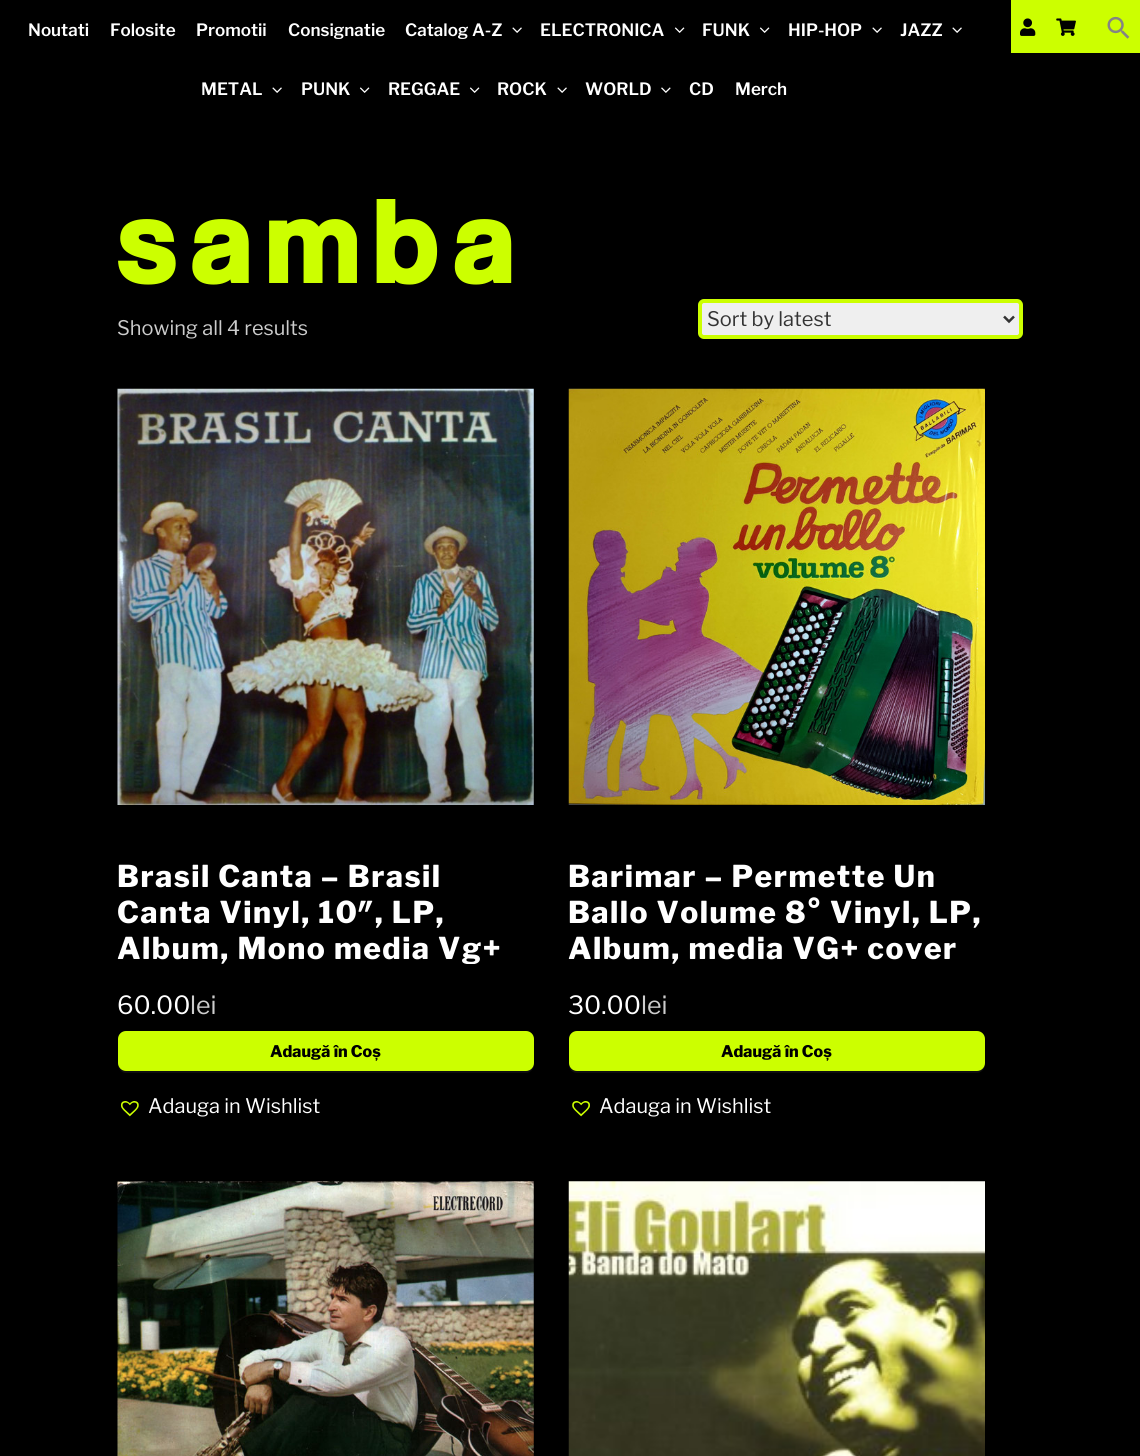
#include <cairo.h>
#include <math.h>
#include <stddef.h>

typedef struct { double x, y; const char *s; } line_t;

static void ink(cairo_t *ctx, unsigned color) {
    cairo_set_source_rgb(ctx, (color >> 16) / 255.0, (color >> 8 & 255) / 255.0, (color & 255) / 255.0);
}

static void write_spaced(cairo_t *ctx, double x, double y, const char *s, double letter, double word) {
    cairo_move_to(ctx, x, y);
    while (*s) {
        char ch[5] = {0};
        int n = 0;
        do ch[n++] = *s++; while ((*s & 0xC0) == 0x80);
        cairo_show_text(ctx, ch);
        cairo_rel_move_to(ctx, letter + word * (*ch == ' '), 0);
    }
}

static void round_path(cairo_t *ctx, double x, double y, double w, double h, double r) {
    cairo_new_sub_path(ctx);
    cairo_arc(ctx, x + w - r, y + h - r, r, 0, M_PI / 2);
    cairo_arc(ctx, x + r, y + h - r, r, M_PI / 2, M_PI);
    cairo_arc(ctx, x + r, y + r, r, M_PI, 1.5 * M_PI);
    cairo_arc(ctx, x + w - r, y + r, r, 1.5 * M_PI, 2 * M_PI);
    cairo_close_path(ctx);
}

static void paste(cairo_t *ctx, const char *path, double x, double y, double w, double h) {
    cairo_surface_t *image = cairo_image_surface_create_from_png(path);
    cairo_save(ctx);
    cairo_set_source_surface(ctx, image, x, y);
    cairo_rectangle(ctx, x, y, w, h);
    cairo_fill(ctx);
    cairo_restore(ctx);
    cairo_surface_destroy(image);
}

int main(void) {
    cairo_surface_t *surface = cairo_image_surface_create(CAIRO_FORMAT_RGB24, 1140, 1456);
    cairo_t *ctx = cairo_create(surface);
    cairo_font_options_t *options = cairo_font_options_create();
    cairo_font_options_set_hint_metrics(options, CAIRO_HINT_METRICS_OFF);
    cairo_font_options_set_hint_style(options, CAIRO_HINT_STYLE_NONE);
    cairo_set_font_options(ctx, options);
    cairo_set_miter_limit(ctx, 4);
    ink(ctx, 0x000000);
    cairo_paint(ctx);
    cairo_select_font_face(ctx, "Libre Franklin SemiBold", CAIRO_FONT_SLANT_NORMAL, CAIRO_FONT_WEIGHT_NORMAL);
    cairo_set_font_size(ctx, 17);
    ink(ctx, 0xFFFFFF);
    {
        static const line_t items[] = {
            {28, 36, "Noutati"},
            {110, 36, "Folosite"},
            {196, 36, "Promotii"},
            {288, 36, "Consignatie"},
            {405, 36, "Catalog A-Z"},
        };
        for (size_t i = 0; i < sizeof items / sizeof *items; i++) {
            cairo_move_to(ctx, items[i].x, items[i].y);
            cairo_show_text(ctx, items[i].s);
        }
    }
    paste(ctx, "media/1.png", 512, 27, 10, 6);
    cairo_move_to(ctx, 540, 36);
    cairo_show_text(ctx, "ELECTRONICA");
    paste(ctx, "media/2.png", 674, 27, 11, 6);
    cairo_move_to(ctx, 702, 36);
    cairo_show_text(ctx, "FUNK");
    paste(ctx, "media/2.png", 759, 27, 11, 6);
    cairo_move_to(ctx, 788, 36);
    cairo_show_text(ctx, "HIP-HOP");
    paste(ctx, "media/1.png", 872, 27, 10, 6);
    cairo_move_to(ctx, 900, 36);
    cairo_show_text(ctx, "JAZZ");
    paste(ctx, "media/1.png", 952, 27, 10, 6);
    cairo_move_to(ctx, 201, 95);
    cairo_show_text(ctx, "METAL");
    paste(ctx, "media/1.png", 272, 87, 10, 6);
    cairo_move_to(ctx, 301, 95);
    cairo_show_text(ctx, "PUNK");
    paste(ctx, "media/2.png", 359, 87, 11, 6);
    cairo_move_to(ctx, 388, 95);
    cairo_show_text(ctx, "REGGAE");
    paste(ctx, "media/2.png", 469, 87, 11, 6);
    cairo_move_to(ctx, 497, 95);
    cairo_show_text(ctx, "ROCK");
    paste(ctx, "media/1.png", 557, 87, 10, 6);
    cairo_move_to(ctx, 585, 95);
    cairo_show_text(ctx, "WORLD");
    paste(ctx, "media/3.png", 661, 87, 10, 6);
    cairo_move_to(ctx, 689, 95);
    cairo_show_text(ctx, "CD");
    cairo_move_to(ctx, 735, 95);
    cairo_show_text(ctx, "Merch");
    ink(ctx, 0xCCFF00);
    cairo_rectangle(ctx, 1011, 0, 129, 53);
    cairo_fill(ctx);
    paste(ctx, "media/4.png", 1020, 18, 16, 18);
    paste(ctx, "media/5.png", 1056, 18, 20, 18);
    paste(ctx, "media/6.png", 1107, 16, 23, 23);
    cairo_select_font_face(ctx, "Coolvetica", CAIRO_FONT_SLANT_NORMAL, CAIRO_FONT_WEIGHT_BOLD);
    cairo_set_font_size(ctx, 120);
    write_spaced(ctx, 117, 283, "samba", 17, 0);
    cairo_select_font_face(ctx, "Libre Franklin", CAIRO_FONT_SLANT_NORMAL, CAIRO_FONT_WEIGHT_NORMAL);
    cairo_set_font_size(ctx, 20);
    ink(ctx, 0xCCCCCC);
    cairo_move_to(ctx, 117, 335);
    cairo_show_text(ctx, "Showing all 4 results");
    ink(ctx, 0xEFEFEF);
    round_path(ctx, 700, 301, 321, 36, 4);
    cairo_fill_preserve(ctx);
    ink(ctx, 0xCCFF00);
    cairo_set_line_width(ctx, 4);
    cairo_stroke(ctx);
    cairo_new_path(ctx);
    cairo_move_to(ctx, 1004, 316.5);
    cairo_line_to(ctx, 1009, 321.5);
    cairo_line_to(ctx, 1014, 316.5);
    ink(ctx, 0x333333);
    cairo_set_line_width(ctx, 2.5);
    cairo_stroke(ctx);
    cairo_move_to(ctx, 707, 326);
    cairo_show_text(ctx, "Sort by latest");
    paste(ctx, "media/7.png", 117, 388, 417, 417);
    cairo_select_font_face(ctx, "Libre Franklin ExtraBold", CAIRO_FONT_SLANT_NORMAL, CAIRO_FONT_WEIGHT_NORMAL);
    cairo_set_font_size(ctx, 30);
    ink(ctx, 0xFFFFFF);
    {
        static const line_t items[] = {
            {117, 887, "Brasil Canta – Brasil"},
            {117, 923, "Canta Vinyl, 10″, LP,"},
            {117, 959, "Album, Mono"},
        };
        for (size_t i = 0; i < sizeof items / sizeof *items; i++) {
            write_spaced(ctx, items[i].x, items[i].y, items[i].s, 1.5, 0);
        }
    }
    cairo_save(ctx);
    cairo_rectangle(ctx, 118, 814, 416, 150);
    cairo_clip(ctx);
    write_spaced(ctx, 334, 959, "media Vg+", 1.5, 0);
    cairo_restore(ctx);
    cairo_select_font_face(ctx, "Libre Franklin", CAIRO_FONT_SLANT_NORMAL, CAIRO_FONT_WEIGHT_NORMAL);
    cairo_set_font_size(ctx, 25);
    cairo_move_to(ctx, 117, 1014);
    cairo_show_text(ctx, "60.00");
    ink(ctx, 0xCCCCCC);
    cairo_move_to(ctx, 190, 1014);
    cairo_show_text(ctx, "lei");
    ink(ctx, 0x0F0F0F);
    cairo_new_path(ctx);
    cairo_move_to(ctx, 118, 1066);
    cairo_curve_to(ctx, 119, 1070, 122, 1073, 126, 1073);
    cairo_line_to(ctx, 526, 1073);
    cairo_curve_to(ctx, 530, 1073, 534, 1069, 534, 1065);
    cairo_line_to(ctx, 534, 1039);
    cairo_line_to(ctx, 534, 1063);
    cairo_curve_to(ctx, 534, 1068, 530, 1071, 526, 1071);
    cairo_line_to(ctx, 126, 1071);
    cairo_curve_to(ctx, 122, 1071, 119, 1069, 118, 1066);
    cairo_close_path(ctx);
    cairo_fill(ctx);
    ink(ctx, 0xCCFF00);
    round_path(ctx, 118, 1031, 416, 40, 8);
    cairo_fill(ctx);
    cairo_select_font_face(ctx, "Libre Franklin ExtraBold", CAIRO_FONT_SLANT_NORMAL, CAIRO_FONT_WEIGHT_NORMAL);
    cairo_set_font_size(ctx, 16);
    ink(ctx, 0x000000);
    cairo_move_to(ctx, 270, 1057);
    cairo_show_text(ctx, "Adaugă în Coș");
    paste(ctx, "media/8.png", 120, 1101, 19, 16);
    cairo_select_font_face(ctx, "Libre Franklin", CAIRO_FONT_SLANT_NORMAL, CAIRO_FONT_WEIGHT_NORMAL);
    cairo_set_font_size(ctx, 20);
    ink(ctx, 0xFFFFFF);
    cairo_move_to(ctx, 148, 1113);
    cairo_show_text(ctx, "Adauga in Wishlist");
    paste(ctx, "media/9.png", 568, 388, 417, 417);
    cairo_select_font_face(ctx, "Libre Franklin ExtraBold", CAIRO_FONT_SLANT_NORMAL, CAIRO_FONT_WEIGHT_NORMAL);
    cairo_set_font_size(ctx, 30);
    {
        static const line_t items[] = {
            {568, 887, "Barimar – Permette Un"},
            {568, 923, "Ballo Volume 8° Vinyl, LP,"},
            {568, 959, "Album, media VG+ cover"},
        };
        for (size_t i = 0; i < sizeof items / sizeof *items; i++) {
            write_spaced(ctx, items[i].x, items[i].y, items[i].s, 1.5, 0);
        }
    }
    cairo_select_font_face(ctx, "Libre Franklin", CAIRO_FONT_SLANT_NORMAL, CAIRO_FONT_WEIGHT_NORMAL);
    cairo_set_font_size(ctx, 25);
    cairo_move_to(ctx, 568, 1014);
    cairo_show_text(ctx, "30.00");
    ink(ctx, 0xCCCCCC);
    cairo_move_to(ctx, 641, 1014);
    cairo_show_text(ctx, "lei");
    ink(ctx, 0x0F0F0F);
    cairo_new_path(ctx);
    cairo_move_to(ctx, 569, 1065);
    cairo_curve_to(ctx, 569, 1070, 573, 1073, 577, 1073);
    cairo_line_to(ctx, 977, 1073);
    cairo_curve_to(ctx, 981, 1073, 985, 1069, 985, 1065);
    cairo_line_to(ctx, 985, 1063);
    cairo_curve_to(ctx, 985, 1068, 981, 1071, 977, 1071);
    cairo_line_to(ctx, 577, 1071);
    cairo_curve_to(ctx, 573, 1071, 570, 1069, 569, 1065);
    cairo_close_path(ctx);
    cairo_fill(ctx);
    ink(ctx, 0xCCFF00);
    round_path(ctx, 569, 1031, 416, 40, 8);
    cairo_fill(ctx);
    cairo_select_font_face(ctx, "Libre Franklin ExtraBold", CAIRO_FONT_SLANT_NORMAL, CAIRO_FONT_WEIGHT_NORMAL);
    cairo_set_font_size(ctx, 16);
    ink(ctx, 0x000000);
    cairo_move_to(ctx, 721, 1057);
    cairo_show_text(ctx, "Adaugă în Coș");
    paste(ctx, "media/10.png", 572, 1101, 18, 16);
    cairo_select_font_face(ctx, "Libre Franklin", CAIRO_FONT_SLANT_NORMAL, CAIRO_FONT_WEIGHT_NORMAL);
    cairo_set_font_size(ctx, 20);
    ink(ctx, 0xFFFFFF);
    cairo_move_to(ctx, 599, 1113);
    cairo_show_text(ctx, "Adauga in Wishlist");
    paste(ctx, "media/11.png", 117, 1181, 417, 275);
    paste(ctx, "media/12.png", 568, 1181, 417, 275);
    cairo_surface_write_to_png(surface, "image.png");
    cairo_font_options_destroy(options);
    cairo_destroy(ctx);
    cairo_surface_destroy(surface);
    return 0;
}
